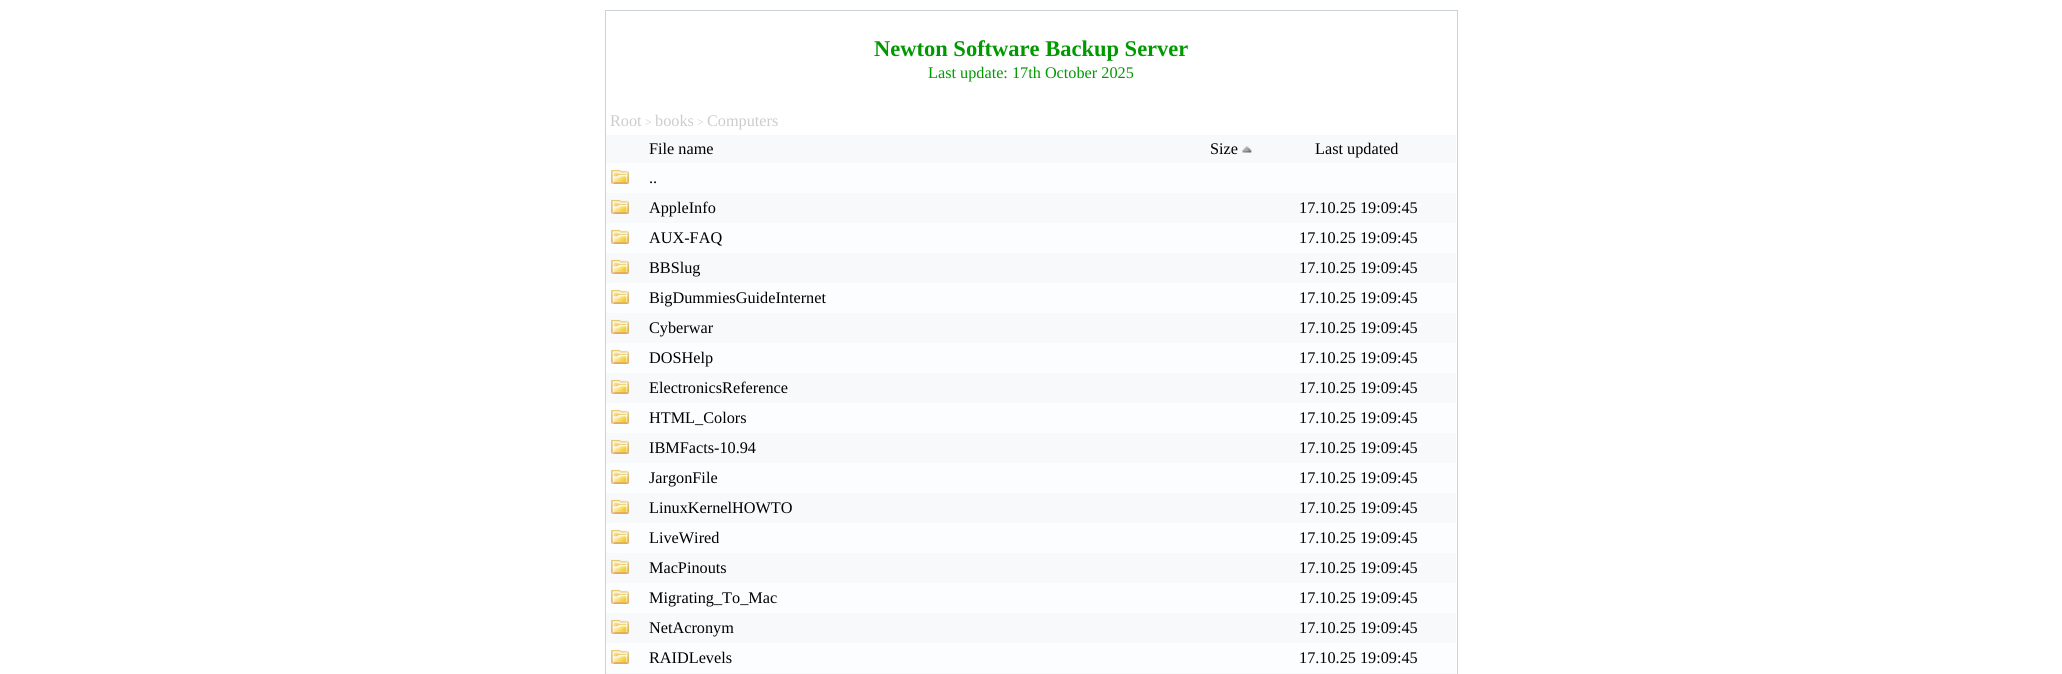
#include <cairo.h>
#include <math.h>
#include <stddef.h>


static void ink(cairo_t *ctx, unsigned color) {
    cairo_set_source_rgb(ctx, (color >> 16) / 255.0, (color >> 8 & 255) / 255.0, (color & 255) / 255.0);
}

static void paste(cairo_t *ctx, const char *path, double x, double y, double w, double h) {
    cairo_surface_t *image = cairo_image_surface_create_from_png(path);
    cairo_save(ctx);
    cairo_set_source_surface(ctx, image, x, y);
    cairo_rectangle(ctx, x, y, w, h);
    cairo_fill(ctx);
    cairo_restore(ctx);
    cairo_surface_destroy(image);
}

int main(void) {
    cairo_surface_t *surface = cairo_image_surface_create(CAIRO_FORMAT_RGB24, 2062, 674);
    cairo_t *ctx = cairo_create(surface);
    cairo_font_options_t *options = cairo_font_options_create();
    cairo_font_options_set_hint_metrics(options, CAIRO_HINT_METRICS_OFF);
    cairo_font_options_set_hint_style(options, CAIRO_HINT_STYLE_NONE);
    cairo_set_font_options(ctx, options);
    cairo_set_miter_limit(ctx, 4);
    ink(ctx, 0xFFFFFF);
    cairo_paint(ctx);
    cairo_rectangle(ctx, 605.5, 10.5, 852, 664);
    ink(ctx, 0xCDD2D6);
    cairo_set_line_width(ctx, 1);
    cairo_stroke(ctx);
    cairo_select_font_face(ctx, "Liberation Serif", CAIRO_FONT_SLANT_NORMAL, CAIRO_FONT_WEIGHT_BOLD);
    cairo_set_font_size(ctx, 22.5);
    ink(ctx, 0x009900);
    cairo_move_to(ctx, 874, 56);
    cairo_show_text(ctx, "Newton Software Backup Server");
    cairo_select_font_face(ctx, "Liberation Serif", CAIRO_FONT_SLANT_NORMAL, CAIRO_FONT_WEIGHT_NORMAL);
    cairo_set_font_size(ctx, 16.25);
    cairo_move_to(ctx, 928, 78);
    cairo_show_text(ctx, "Last update: 17th October 2025");
    ink(ctx, 0xCCCCCC);
    cairo_move_to(ctx, 610, 126);
    cairo_show_text(ctx, "Root");
    cairo_set_font_size(ctx, 12);
    cairo_move_to(ctx, 645, 126);
    cairo_show_text(ctx, ">");
    cairo_set_font_size(ctx, 16.25);
    cairo_move_to(ctx, 655, 126);
    cairo_show_text(ctx, "books");
    cairo_set_font_size(ctx, 12);
    cairo_move_to(ctx, 697, 126);
    cairo_show_text(ctx, ">");
    cairo_set_font_size(ctx, 16.25);
    cairo_move_to(ctx, 707, 126);
    cairo_show_text(ctx, "Computers");
    ink(ctx, 0xF8F9FA);
    cairo_rectangle(ctx, 606, 135, 850, 28);
    cairo_fill(ctx);
    ink(ctx, 0x000000);
    cairo_move_to(ctx, 649, 154);
    cairo_show_text(ctx, "File name");
    cairo_move_to(ctx, 1210, 154);
    cairo_show_text(ctx, "Size");
    paste(ctx, "media/1.png", 1242, 146, 10, 7);
    cairo_move_to(ctx, 1315, 154);
    cairo_show_text(ctx, "Last updated");
    ink(ctx, 0xFCFDFE);
    cairo_rectangle(ctx, 606, 163, 850, 30);
    cairo_fill(ctx);
    paste(ctx, "media/2.png", 611, 169, 18, 15);
    ink(ctx, 0x000000);
    cairo_move_to(ctx, 649, 183);
    cairo_show_text(ctx, "..");
    ink(ctx, 0xF8F9FA);
    cairo_rectangle(ctx, 606, 193, 850, 30);
    cairo_fill(ctx);
    paste(ctx, "media/3.png", 611, 199, 18, 15);
    ink(ctx, 0x000000);
    cairo_move_to(ctx, 649, 213);
    cairo_show_text(ctx, "AppleInfo");
    cairo_move_to(ctx, 1299, 213);
    cairo_show_text(ctx, "17.10.25 19:09:45");
    ink(ctx, 0xFCFDFE);
    cairo_rectangle(ctx, 606, 223, 850, 30);
    cairo_fill(ctx);
    paste(ctx, "media/2.png", 611, 229, 18, 15);
    ink(ctx, 0x000000);
    cairo_move_to(ctx, 649, 243);
    cairo_show_text(ctx, "AUX-FAQ");
    cairo_move_to(ctx, 1299, 243);
    cairo_show_text(ctx, "17.10.25 19:09:45");
    ink(ctx, 0xF8F9FA);
    cairo_rectangle(ctx, 606, 253, 850, 30);
    cairo_fill(ctx);
    paste(ctx, "media/3.png", 611, 259, 18, 15);
    ink(ctx, 0x000000);
    cairo_move_to(ctx, 649, 273);
    cairo_show_text(ctx, "BBSlug");
    cairo_move_to(ctx, 1299, 273);
    cairo_show_text(ctx, "17.10.25 19:09:45");
    ink(ctx, 0xFCFDFE);
    cairo_rectangle(ctx, 606, 283, 850, 30);
    cairo_fill(ctx);
    paste(ctx, "media/4.png", 611, 289, 18, 15);
    ink(ctx, 0x000000);
    cairo_move_to(ctx, 649, 303);
    cairo_show_text(ctx, "BigDummiesGuideInternet");
    cairo_move_to(ctx, 1299, 303);
    cairo_show_text(ctx, "17.10.25 19:09:45");
    ink(ctx, 0xF8F9FA);
    cairo_rectangle(ctx, 606, 313, 850, 30);
    cairo_fill(ctx);
    paste(ctx, "media/3.png", 611, 319, 18, 15);
    ink(ctx, 0x000000);
    cairo_move_to(ctx, 649, 333);
    cairo_show_text(ctx, "Cyberwar");
    cairo_move_to(ctx, 1299, 333);
    cairo_show_text(ctx, "17.10.25 19:09:45");
    ink(ctx, 0xFCFDFE);
    cairo_rectangle(ctx, 606, 343, 850, 30);
    cairo_fill(ctx);
    paste(ctx, "media/2.png", 611, 349, 18, 15);
    ink(ctx, 0x000000);
    cairo_move_to(ctx, 649, 363);
    cairo_show_text(ctx, "DOSHelp");
    cairo_move_to(ctx, 1299, 363);
    cairo_show_text(ctx, "17.10.25 19:09:45");
    ink(ctx, 0xF8F9FA);
    cairo_rectangle(ctx, 606, 373, 850, 30);
    cairo_fill(ctx);
    paste(ctx, "media/3.png", 611, 379, 18, 15);
    ink(ctx, 0x000000);
    cairo_move_to(ctx, 649, 393);
    cairo_show_text(ctx, "ElectronicsReference");
    cairo_move_to(ctx, 1299, 393);
    cairo_show_text(ctx, "17.10.25 19:09:45");
    ink(ctx, 0xFCFDFE);
    cairo_rectangle(ctx, 606, 403, 850, 30);
    cairo_fill(ctx);
    paste(ctx, "media/2.png", 611, 409, 18, 15);
    ink(ctx, 0x000000);
    cairo_move_to(ctx, 649, 423);
    cairo_show_text(ctx, "HTML_Colors");
    cairo_move_to(ctx, 1299, 423);
    cairo_show_text(ctx, "17.10.25 19:09:45");
    ink(ctx, 0xF8F9FA);
    cairo_rectangle(ctx, 606, 433, 850, 30);
    cairo_fill(ctx);
    paste(ctx, "media/3.png", 611, 439, 18, 15);
    ink(ctx, 0x000000);
    cairo_move_to(ctx, 649, 453);
    cairo_show_text(ctx, "IBMFacts-10.94");
    cairo_move_to(ctx, 1299, 453);
    cairo_show_text(ctx, "17.10.25 19:09:45");
    ink(ctx, 0xFCFDFE);
    cairo_rectangle(ctx, 606, 463, 850, 30);
    cairo_fill(ctx);
    paste(ctx, "media/2.png", 611, 469, 18, 15);
    ink(ctx, 0x000000);
    cairo_move_to(ctx, 649, 483);
    cairo_show_text(ctx, "JargonFile");
    cairo_move_to(ctx, 1299, 483);
    cairo_show_text(ctx, "17.10.25 19:09:45");
    ink(ctx, 0xF8F9FA);
    cairo_rectangle(ctx, 606, 493, 850, 30);
    cairo_fill(ctx);
    paste(ctx, "media/3.png", 611, 499, 18, 15);
    ink(ctx, 0x000000);
    cairo_move_to(ctx, 649, 513);
    cairo_show_text(ctx, "LinuxKernelHOWTO");
    cairo_move_to(ctx, 1299, 513);
    cairo_show_text(ctx, "17.10.25 19:09:45");
    ink(ctx, 0xFCFDFE);
    cairo_rectangle(ctx, 606, 523, 850, 30);
    cairo_fill(ctx);
    paste(ctx, "media/2.png", 611, 529, 18, 15);
    ink(ctx, 0x000000);
    cairo_move_to(ctx, 649, 543);
    cairo_show_text(ctx, "LiveWired");
    cairo_move_to(ctx, 1299, 543);
    cairo_show_text(ctx, "17.10.25 19:09:45");
    ink(ctx, 0xF8F9FA);
    cairo_rectangle(ctx, 606, 553, 850, 30);
    cairo_fill(ctx);
    paste(ctx, "media/3.png", 611, 559, 18, 15);
    ink(ctx, 0x000000);
    cairo_move_to(ctx, 649, 573);
    cairo_show_text(ctx, "MacPinouts");
    cairo_move_to(ctx, 1299, 573);
    cairo_show_text(ctx, "17.10.25 19:09:45");
    ink(ctx, 0xFCFDFE);
    cairo_rectangle(ctx, 606, 583, 850, 30);
    cairo_fill(ctx);
    paste(ctx, "media/5.png", 611, 589, 18, 15);
    ink(ctx, 0x000000);
    cairo_move_to(ctx, 649, 603);
    cairo_show_text(ctx, "Migrating_To_Mac");
    cairo_move_to(ctx, 1299, 603);
    cairo_show_text(ctx, "17.10.25 19:09:45");
    ink(ctx, 0xF8F9FA);
    cairo_rectangle(ctx, 606, 613, 850, 30);
    cairo_fill(ctx);
    paste(ctx, "media/3.png", 611, 619, 18, 15);
    ink(ctx, 0x000000);
    cairo_move_to(ctx, 649, 633);
    cairo_show_text(ctx, "NetAcronym");
    cairo_move_to(ctx, 1299, 633);
    cairo_show_text(ctx, "17.10.25 19:09:45");
    ink(ctx, 0xFCFDFE);
    cairo_rectangle(ctx, 606, 643, 850, 30);
    cairo_fill(ctx);
    paste(ctx, "media/2.png", 611, 649, 18, 15);
    ink(ctx, 0x000000);
    cairo_move_to(ctx, 649, 663);
    cairo_show_text(ctx, "RAIDLevels");
    cairo_move_to(ctx, 1299, 663);
    cairo_show_text(ctx, "17.10.25 19:09:45");
    ink(ctx, 0xF8F9FA);
    cairo_rectangle(ctx, 606, 673, 850, 1);
    cairo_fill(ctx);
    cairo_surface_write_to_png(surface, "image.png");
    cairo_font_options_destroy(options);
    cairo_destroy(ctx);
    cairo_surface_destroy(surface);
    return 0;
}
